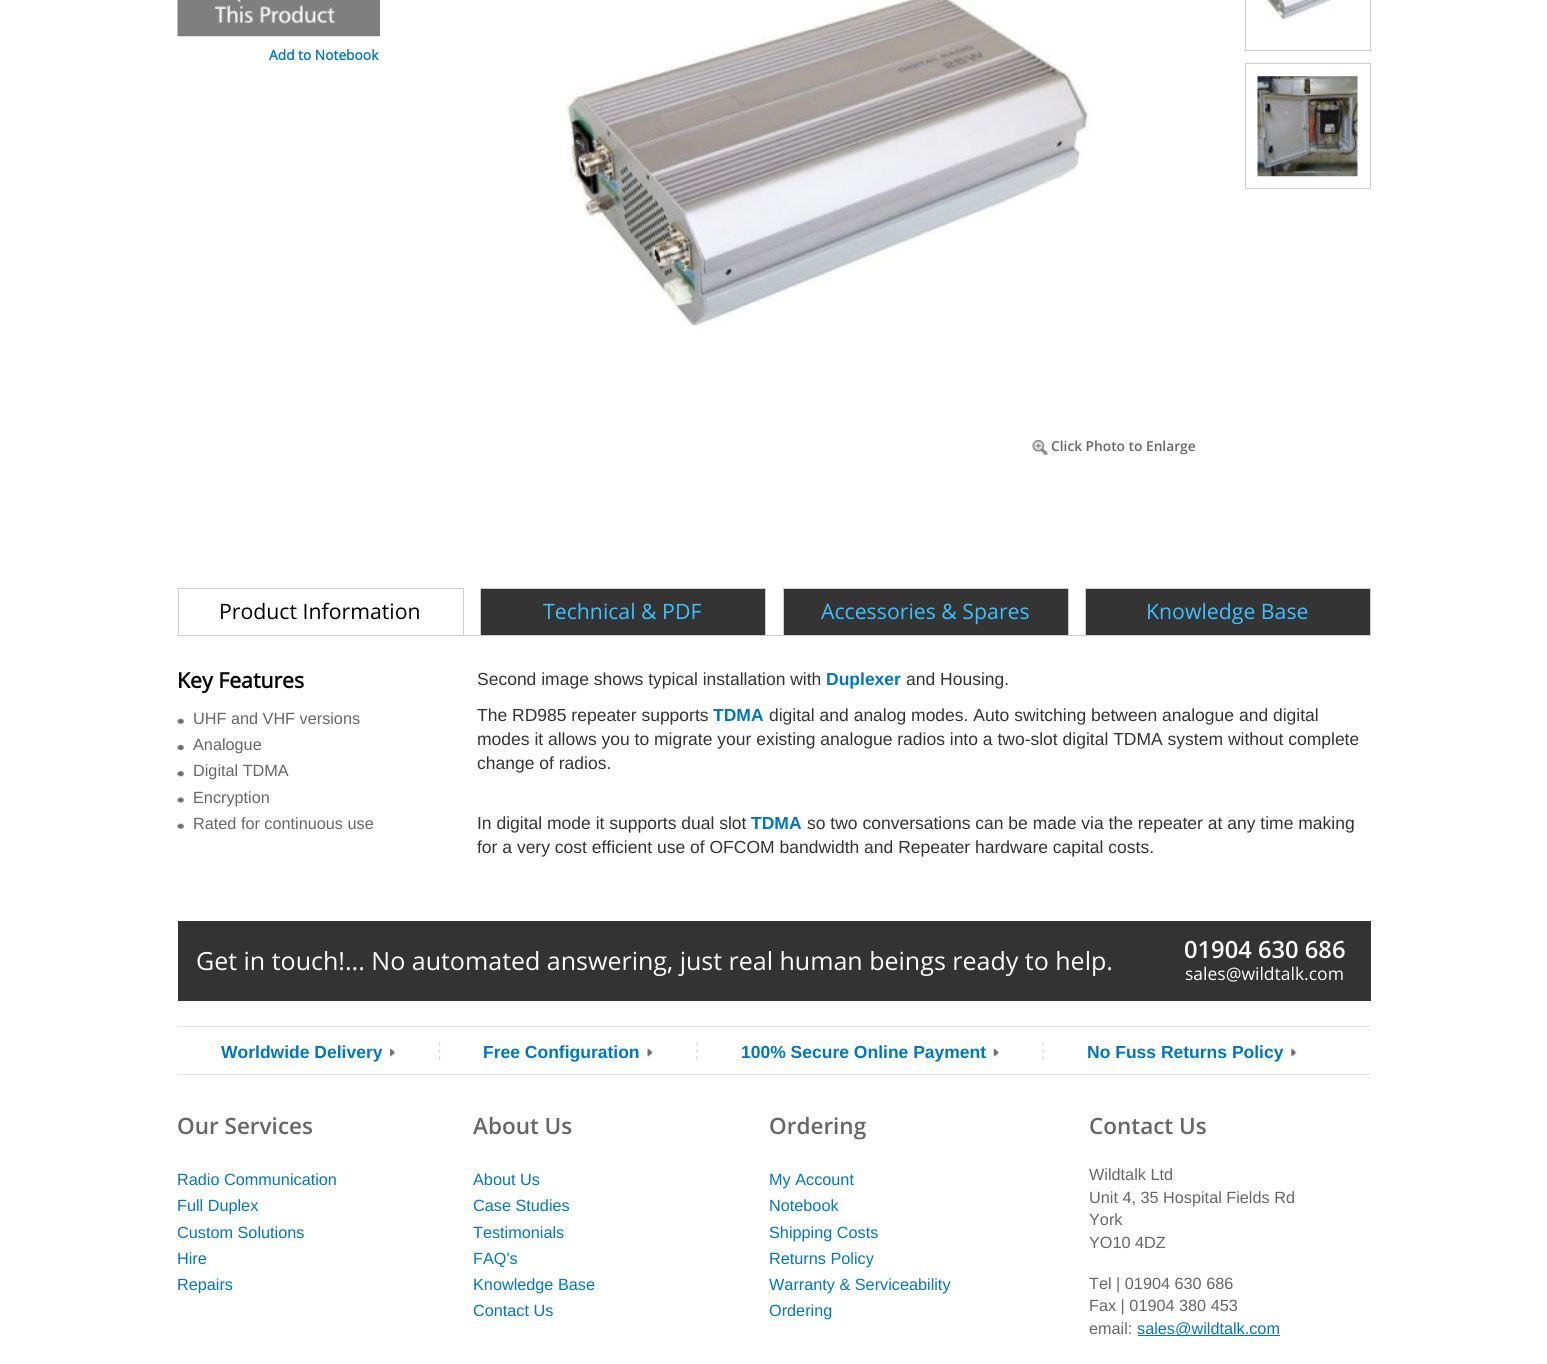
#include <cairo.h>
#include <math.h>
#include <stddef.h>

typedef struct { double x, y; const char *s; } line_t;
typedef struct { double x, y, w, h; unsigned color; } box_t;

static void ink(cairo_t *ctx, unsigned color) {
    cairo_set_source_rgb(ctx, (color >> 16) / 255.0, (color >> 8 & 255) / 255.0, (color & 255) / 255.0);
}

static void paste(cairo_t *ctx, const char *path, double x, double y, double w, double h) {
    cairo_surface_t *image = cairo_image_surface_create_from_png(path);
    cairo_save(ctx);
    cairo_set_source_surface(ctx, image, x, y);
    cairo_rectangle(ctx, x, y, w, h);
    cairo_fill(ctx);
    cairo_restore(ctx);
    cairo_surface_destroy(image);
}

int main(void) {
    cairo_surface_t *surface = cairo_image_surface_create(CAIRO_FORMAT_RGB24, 1547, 1364);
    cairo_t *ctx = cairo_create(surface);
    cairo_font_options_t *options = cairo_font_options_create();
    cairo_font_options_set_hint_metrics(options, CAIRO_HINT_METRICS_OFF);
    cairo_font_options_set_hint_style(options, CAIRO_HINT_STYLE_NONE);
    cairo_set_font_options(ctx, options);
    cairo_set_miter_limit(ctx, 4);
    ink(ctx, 0xFFFFFF);
    cairo_paint(ctx);
    paste(ctx, "media/1.png", 177, 0, 203, 37);
    cairo_select_font_face(ctx, "Open Sans", CAIRO_FONT_SLANT_NORMAL, CAIRO_FONT_WEIGHT_BOLD);
    cairo_set_font_size(ctx, 13.75);
    ink(ctx, 0x0076C3);
    cairo_move_to(ctx, 269, 60);
    cairo_show_text(ctx, "Add to Notebook");
    cairo_rectangle(ctx, 1245.5, -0.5, 125, 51);
    ink(ctx, 0xCCCCCC);
    cairo_set_line_width(ctx, 1);
    cairo_stroke(ctx);
    paste(ctx, "media/2.png", 1266, 0, 71, 19);
    cairo_rectangle(ctx, 1245.5, 63.5, 125, 125);
    cairo_stroke(ctx);
    paste(ctx, "media/3.png", 1257, 76, 101, 101);
    paste(ctx, "media/4.png", 565, 0, 527, 331);
    paste(ctx, "media/5.png", 1032, 440, 16, 15);
    cairo_select_font_face(ctx, "Open Sans SemiBold", CAIRO_FONT_SLANT_NORMAL, CAIRO_FONT_WEIGHT_NORMAL);
    ink(ctx, 0x666666);
    cairo_move_to(ctx, 1051, 451);
    cairo_show_text(ctx, "Click Photo to Enlarge");
    {
        static const box_t items[] = {
            {178, 588, 286, 1, 0xCCCCCC},
            {463, 588, 1, 47, 0xCCCCCC},
            {178, 588, 1, 47, 0xCCCCCC},
        };
        for (size_t i = 0; i < sizeof items / sizeof *items; i++) {
            ink(ctx, items[i].color);
            cairo_rectangle(ctx, items[i].x, items[i].y, items[i].w, items[i].h);
            cairo_fill(ctx);
        }
    }
    cairo_select_font_face(ctx, "Open Sans", CAIRO_FONT_SLANT_NORMAL, CAIRO_FONT_WEIGHT_NORMAL);
    cairo_set_font_size(ctx, 21.25);
    ink(ctx, 0x000000);
    cairo_move_to(ctx, 219, 619);
    cairo_show_text(ctx, "Product Information");
    {
        static const box_t items[] = {
            {481, 589, 284, 46, 0x343434},
            {480, 588, 286, 1, 0xCCCCCC},
            {765, 588, 1, 47, 0xCCCCCC},
            {480, 588, 1, 47, 0xCCCCCC},
        };
        for (size_t i = 0; i < sizeof items / sizeof *items; i++) {
            ink(ctx, items[i].color);
            cairo_rectangle(ctx, items[i].x, items[i].y, items[i].w, items[i].h);
            cairo_fill(ctx);
        }
    }
    ink(ctx, 0x3AC2FF);
    cairo_move_to(ctx, 543, 619);
    cairo_show_text(ctx, "Technical & PDF");
    {
        static const box_t items[] = {
            {784, 589, 284, 46, 0x343434},
            {783, 588, 286, 1, 0xCCCCCC},
            {1068, 588, 1, 47, 0xCCCCCC},
            {783, 588, 1, 47, 0xCCCCCC},
        };
        for (size_t i = 0; i < sizeof items / sizeof *items; i++) {
            ink(ctx, items[i].color);
            cairo_rectangle(ctx, items[i].x, items[i].y, items[i].w, items[i].h);
            cairo_fill(ctx);
        }
    }
    ink(ctx, 0x3AC2FF);
    cairo_move_to(ctx, 821, 619);
    cairo_show_text(ctx, "Accessories & Spares");
    {
        static const box_t items[] = {
            {1086, 589, 284, 46, 0x343434},
            {1085, 588, 286, 1, 0xCCCCCC},
            {1370, 588, 1, 47, 0xCCCCCC},
            {1085, 588, 1, 47, 0xCCCCCC},
        };
        for (size_t i = 0; i < sizeof items / sizeof *items; i++) {
            ink(ctx, items[i].color);
            cairo_rectangle(ctx, items[i].x, items[i].y, items[i].w, items[i].h);
            cairo_fill(ctx);
        }
    }
    ink(ctx, 0x3AC2FF);
    cairo_move_to(ctx, 1146, 619);
    cairo_show_text(ctx, "Knowledge Base");
    ink(ctx, 0xCCCCCC);
    cairo_rectangle(ctx, 178, 635, 1193, 1);
    cairo_fill(ctx);
    cairo_select_font_face(ctx, "Open Sans", CAIRO_FONT_SLANT_NORMAL, CAIRO_FONT_WEIGHT_BOLD);
    ink(ctx, 0x000000);
    cairo_move_to(ctx, 177, 688);
    cairo_show_text(ctx, "Key Features");
    paste(ctx, "media/6.png", 177, 718, 7, 6);
    cairo_select_font_face(ctx, "Liberation Sans", CAIRO_FONT_SLANT_NORMAL, CAIRO_FONT_WEIGHT_NORMAL);
    cairo_set_font_size(ctx, 16.25);
    ink(ctx, 0x666666);
    cairo_move_to(ctx, 193, 724);
    cairo_show_text(ctx, "UHF and VHF versions");
    paste(ctx, "media/7.png", 177, 745, 7, 5);
    cairo_move_to(ctx, 193, 750);
    cairo_show_text(ctx, "Analogue");
    paste(ctx, "media/8.png", 177, 771, 7, 6);
    cairo_move_to(ctx, 193, 776);
    cairo_show_text(ctx, "Digital TDMA");
    paste(ctx, "media/9.png", 177, 797, 7, 6);
    cairo_move_to(ctx, 193, 803);
    cairo_show_text(ctx, "Encryption");
    paste(ctx, "media/6.png", 177, 823, 7, 6);
    cairo_move_to(ctx, 193, 829);
    cairo_show_text(ctx, "Rated for continuous use");
    cairo_set_font_size(ctx, 17.5);
    ink(ctx, 0x333333);
    cairo_move_to(ctx, 477, 685);
    cairo_show_text(ctx, "Second image shows typical installation with");
    cairo_select_font_face(ctx, "Liberation Sans", CAIRO_FONT_SLANT_NORMAL, CAIRO_FONT_WEIGHT_BOLD);
    ink(ctx, 0x0076C3);
    cairo_move_to(ctx, 826, 685);
    cairo_show_text(ctx, "Duplexer");
    cairo_select_font_face(ctx, "Liberation Sans", CAIRO_FONT_SLANT_NORMAL, CAIRO_FONT_WEIGHT_NORMAL);
    ink(ctx, 0x333333);
    cairo_move_to(ctx, 906, 685);
    cairo_show_text(ctx, "and Housing.");
    cairo_move_to(ctx, 477, 721);
    cairo_show_text(ctx, "The RD985 repeater supports");
    cairo_select_font_face(ctx, "Liberation Sans", CAIRO_FONT_SLANT_NORMAL, CAIRO_FONT_WEIGHT_BOLD);
    ink(ctx, 0x0076C3);
    cairo_move_to(ctx, 713, 721);
    cairo_show_text(ctx, "TDMA");
    cairo_select_font_face(ctx, "Liberation Sans", CAIRO_FONT_SLANT_NORMAL, CAIRO_FONT_WEIGHT_NORMAL);
    ink(ctx, 0x333333);
    {
        static const line_t items[] = {
            {769, 721, "digital and analog modes. Auto switching between analogue and digital"},
            {477, 745, "modes it allows you to migrate your existing analogue radios into a two-slot digital TDMA system without complete"},
            {477, 769, "change of radios."},
            {477, 829, "In digital mode it supports dual slot"},
        };
        for (size_t i = 0; i < sizeof items / sizeof *items; i++) {
            cairo_move_to(ctx, items[i].x, items[i].y);
            cairo_show_text(ctx, items[i].s);
        }
    }
    cairo_select_font_face(ctx, "Liberation Sans", CAIRO_FONT_SLANT_NORMAL, CAIRO_FONT_WEIGHT_BOLD);
    ink(ctx, 0x0076C3);
    cairo_move_to(ctx, 751, 829);
    cairo_show_text(ctx, "TDMA");
    cairo_select_font_face(ctx, "Liberation Sans", CAIRO_FONT_SLANT_NORMAL, CAIRO_FONT_WEIGHT_NORMAL);
    ink(ctx, 0x333333);
    cairo_move_to(ctx, 807, 829);
    cairo_show_text(ctx, "so two conversations can be made via the repeater at any time making");
    cairo_move_to(ctx, 477, 853);
    cairo_show_text(ctx, "for a very cost efficient use of OFCOM bandwidth and Repeater hardware capital costs.");
    cairo_rectangle(ctx, 178, 921, 1193, 80);
    cairo_fill(ctx);
    cairo_select_font_face(ctx, "Open Sans", CAIRO_FONT_SLANT_NORMAL, CAIRO_FONT_WEIGHT_NORMAL);
    cairo_set_font_size(ctx, 25);
    ink(ctx, 0xFFFFFF);
    cairo_move_to(ctx, 196, 970);
    cairo_show_text(ctx, "Get in touch!... No automated answering, just real human beings ready to help.");
    cairo_select_font_face(ctx, "Open Sans SemiBold", CAIRO_FONT_SLANT_NORMAL, CAIRO_FONT_WEIGHT_NORMAL);
    cairo_set_font_size(ctx, 23.75);
    cairo_move_to(ctx, 1184, 958);
    cairo_show_text(ctx, "01904 630 686");
    cairo_select_font_face(ctx, "Open Sans", CAIRO_FONT_SLANT_NORMAL, CAIRO_FONT_WEIGHT_NORMAL);
    cairo_set_font_size(ctx, 17.5);
    cairo_move_to(ctx, 1185, 980);
    cairo_show_text(ctx, "sales@wildtalk.com");
    ink(ctx, 0xE5E5E5);
    cairo_rectangle(ctx, 178, 1026, 1193, 1);
    cairo_fill(ctx);
    cairo_rectangle(ctx, 178, 1074, 1193, 1);
    cairo_fill(ctx);
    cairo_new_path(ctx);
    cairo_move_to(ctx, 439.5, 1042.5);
    cairo_line_to(ctx, 439.5, 1046);
    cairo_move_to(ctx, 439.5, 1049.5);
    cairo_line_to(ctx, 439.5, 1053);
    cairo_move_to(ctx, 439.5, 1056);
    cairo_line_to(ctx, 439.5, 1060);
    ink(ctx, 0xD6D6D6);
    cairo_set_line_width(ctx, 1.2);
    cairo_stroke(ctx);
    paste(ctx, "media/10.png", 390, 1048, 5, 9);
    cairo_select_font_face(ctx, "Liberation Sans", CAIRO_FONT_SLANT_NORMAL, CAIRO_FONT_WEIGHT_BOLD);
    ink(ctx, 0x0076C3);
    cairo_move_to(ctx, 221, 1058);
    cairo_show_text(ctx, "Worldwide Delivery");
    cairo_new_path(ctx);
    cairo_move_to(ctx, 697, 1042.5);
    cairo_line_to(ctx, 697, 1046);
    cairo_move_to(ctx, 697, 1049.5);
    cairo_line_to(ctx, 697, 1053);
    cairo_move_to(ctx, 697, 1056);
    cairo_line_to(ctx, 697, 1060);
    ink(ctx, 0xD6D6D6);
    cairo_stroke(ctx);
    paste(ctx, "media/11.png", 647, 1048, 6, 9);
    ink(ctx, 0x0076C3);
    cairo_move_to(ctx, 483, 1058);
    cairo_show_text(ctx, "Free Configuration");
    cairo_new_path(ctx);
    cairo_move_to(ctx, 1043, 1042.5);
    cairo_line_to(ctx, 1043, 1046);
    cairo_move_to(ctx, 1043, 1049.5);
    cairo_line_to(ctx, 1043, 1053);
    cairo_move_to(ctx, 1043, 1056);
    cairo_line_to(ctx, 1043, 1060);
    ink(ctx, 0xD6D6D6);
    cairo_stroke(ctx);
    paste(ctx, "media/12.png", 993, 1048, 6, 9);
    ink(ctx, 0x0076C3);
    cairo_move_to(ctx, 741, 1058);
    cairo_show_text(ctx, "100% Secure Online Payment");
    paste(ctx, "media/13.png", 1291, 1048, 6, 9);
    cairo_move_to(ctx, 1087, 1058);
    cairo_show_text(ctx, "No Fuss Returns Policy");
    cairo_select_font_face(ctx, "Open Sans SemiBold", CAIRO_FONT_SLANT_NORMAL, CAIRO_FONT_WEIGHT_NORMAL);
    cairo_set_font_size(ctx, 22.5);
    ink(ctx, 0x666666);
    cairo_move_to(ctx, 177, 1134);
    cairo_show_text(ctx, "Our Services");
    cairo_select_font_face(ctx, "Liberation Sans", CAIRO_FONT_SLANT_NORMAL, CAIRO_FONT_WEIGHT_NORMAL);
    cairo_set_font_size(ctx, 16.25);
    ink(ctx, 0x0076C3);
    {
        static const line_t items[] = {
            {177, 1185, "Radio Communication"},
            {177, 1211, "Full Duplex"},
            {177, 1238, "Custom Solutions"},
            {177, 1264, "Hire"},
            {177, 1290, "Repairs"},
        };
        for (size_t i = 0; i < sizeof items / sizeof *items; i++) {
            cairo_move_to(ctx, items[i].x, items[i].y);
            cairo_show_text(ctx, items[i].s);
        }
    }
    cairo_select_font_face(ctx, "Open Sans SemiBold", CAIRO_FONT_SLANT_NORMAL, CAIRO_FONT_WEIGHT_NORMAL);
    cairo_set_font_size(ctx, 22.5);
    ink(ctx, 0x666666);
    cairo_move_to(ctx, 473, 1134);
    cairo_show_text(ctx, "About Us");
    cairo_select_font_face(ctx, "Liberation Sans", CAIRO_FONT_SLANT_NORMAL, CAIRO_FONT_WEIGHT_NORMAL);
    cairo_set_font_size(ctx, 16.25);
    ink(ctx, 0x0076C3);
    {
        static const line_t items[] = {
            {473, 1185, "About Us"},
            {473, 1211, "Case Studies"},
            {473, 1238, "Testimonials"},
            {473, 1264, "FAQ's"},
            {473, 1290, "Knowledge Base"},
            {473, 1316, "Contact Us"},
        };
        for (size_t i = 0; i < sizeof items / sizeof *items; i++) {
            cairo_move_to(ctx, items[i].x, items[i].y);
            cairo_show_text(ctx, items[i].s);
        }
    }
    cairo_select_font_face(ctx, "Open Sans SemiBold", CAIRO_FONT_SLANT_NORMAL, CAIRO_FONT_WEIGHT_NORMAL);
    cairo_set_font_size(ctx, 22.5);
    ink(ctx, 0x666666);
    cairo_move_to(ctx, 769, 1134);
    cairo_show_text(ctx, "Ordering");
    cairo_select_font_face(ctx, "Liberation Sans", CAIRO_FONT_SLANT_NORMAL, CAIRO_FONT_WEIGHT_NORMAL);
    cairo_set_font_size(ctx, 16.25);
    ink(ctx, 0x0076C3);
    {
        static const line_t items[] = {
            {769, 1185, "My Account"},
            {769, 1211, "Notebook"},
            {769, 1238, "Shipping Costs"},
            {769, 1264, "Returns Policy"},
            {769, 1290, "Warranty & Serviceability"},
            {769, 1316, "Ordering"},
        };
        for (size_t i = 0; i < sizeof items / sizeof *items; i++) {
            cairo_move_to(ctx, items[i].x, items[i].y);
            cairo_show_text(ctx, items[i].s);
        }
    }
    cairo_select_font_face(ctx, "Open Sans SemiBold", CAIRO_FONT_SLANT_NORMAL, CAIRO_FONT_WEIGHT_NORMAL);
    cairo_set_font_size(ctx, 22.5);
    ink(ctx, 0x666666);
    cairo_move_to(ctx, 1089, 1134);
    cairo_show_text(ctx, "Contact Us");
    cairo_select_font_face(ctx, "Liberation Sans", CAIRO_FONT_SLANT_NORMAL, CAIRO_FONT_WEIGHT_NORMAL);
    cairo_set_font_size(ctx, 16.25);
    {
        static const line_t items[] = {
            {1089, 1180, "Wildtalk Ltd"},
            {1089, 1203, "Unit 4, 35 Hospital Fields Rd"},
            {1089, 1225, "York"},
            {1089, 1248, "YO10 4DZ"},
            {1089, 1289, "Tel | 01904 630 686"},
            {1089, 1311, "Fax | 01904 380 453"},
            {1089, 1334, "email:"},
        };
        for (size_t i = 0; i < sizeof items / sizeof *items; i++) {
            cairo_move_to(ctx, items[i].x, items[i].y);
            cairo_show_text(ctx, items[i].s);
        }
    }
    ink(ctx, 0x0076C3);
    cairo_rectangle(ctx, 1138, 1335, 142, 1);
    cairo_fill(ctx);
    cairo_move_to(ctx, 1137, 1334);
    cairo_show_text(ctx, "sales@wildtalk.com");
    cairo_surface_write_to_png(surface, "image.png");
    cairo_font_options_destroy(options);
    cairo_destroy(ctx);
    cairo_surface_destroy(surface);
    return 0;
}
